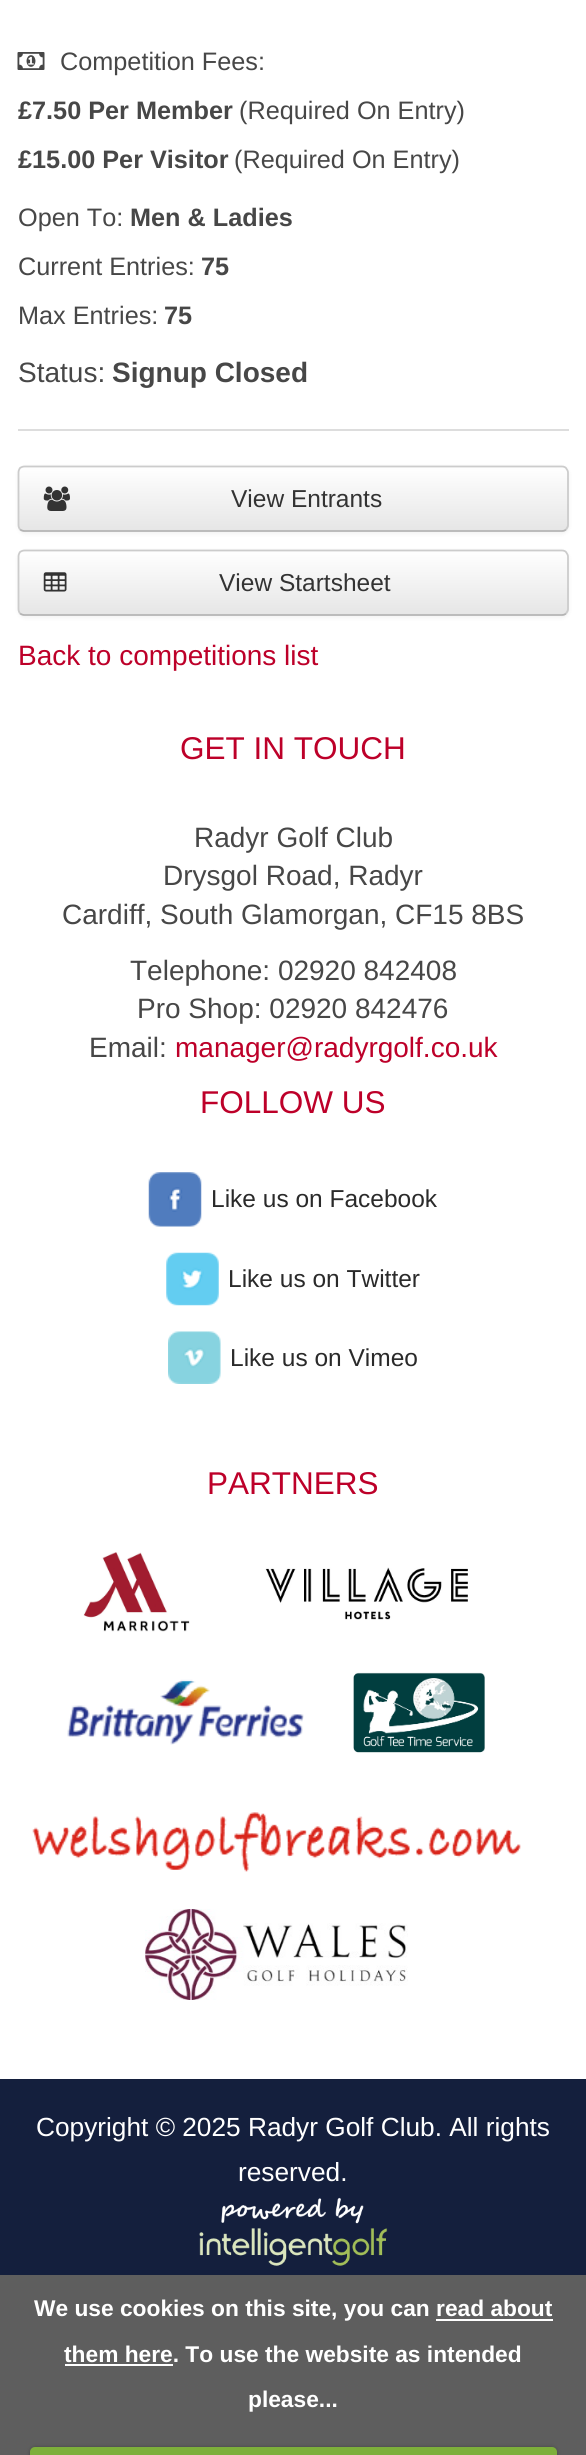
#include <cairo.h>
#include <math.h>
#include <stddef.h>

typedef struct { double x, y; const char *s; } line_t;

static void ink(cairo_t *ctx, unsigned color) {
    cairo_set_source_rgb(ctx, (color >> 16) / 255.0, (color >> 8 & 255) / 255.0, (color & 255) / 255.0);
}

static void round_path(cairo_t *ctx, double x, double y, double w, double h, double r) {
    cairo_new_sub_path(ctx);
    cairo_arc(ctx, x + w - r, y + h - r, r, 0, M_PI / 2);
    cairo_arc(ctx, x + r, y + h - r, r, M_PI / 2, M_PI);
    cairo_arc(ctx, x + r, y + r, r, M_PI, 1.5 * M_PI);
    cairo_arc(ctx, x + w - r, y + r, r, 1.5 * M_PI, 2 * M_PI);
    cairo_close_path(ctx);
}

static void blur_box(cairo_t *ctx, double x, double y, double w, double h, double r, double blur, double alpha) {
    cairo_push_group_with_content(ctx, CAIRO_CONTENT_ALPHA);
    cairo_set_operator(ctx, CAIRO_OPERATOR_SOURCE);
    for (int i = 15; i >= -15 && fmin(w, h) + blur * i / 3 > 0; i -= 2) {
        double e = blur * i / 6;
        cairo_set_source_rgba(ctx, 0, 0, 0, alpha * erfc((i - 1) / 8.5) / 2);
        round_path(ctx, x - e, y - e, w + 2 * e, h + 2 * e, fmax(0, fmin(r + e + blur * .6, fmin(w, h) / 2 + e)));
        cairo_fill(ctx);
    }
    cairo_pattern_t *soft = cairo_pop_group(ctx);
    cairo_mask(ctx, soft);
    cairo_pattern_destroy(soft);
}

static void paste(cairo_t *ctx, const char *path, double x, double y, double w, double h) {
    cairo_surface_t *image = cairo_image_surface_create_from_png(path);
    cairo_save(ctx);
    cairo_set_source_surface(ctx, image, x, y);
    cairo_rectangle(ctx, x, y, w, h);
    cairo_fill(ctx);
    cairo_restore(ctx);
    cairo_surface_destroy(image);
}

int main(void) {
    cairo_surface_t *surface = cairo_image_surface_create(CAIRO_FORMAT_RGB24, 586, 2455);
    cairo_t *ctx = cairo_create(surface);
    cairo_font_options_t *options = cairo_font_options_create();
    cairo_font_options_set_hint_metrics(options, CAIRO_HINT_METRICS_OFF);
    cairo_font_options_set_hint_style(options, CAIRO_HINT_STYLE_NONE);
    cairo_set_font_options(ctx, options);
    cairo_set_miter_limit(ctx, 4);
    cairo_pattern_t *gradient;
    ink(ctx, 0xFFFFFF);
    cairo_paint(ctx);
    paste(ctx, "media/1.png", 17, 52, 28, 18);
    cairo_select_font_face(ctx, "Liberation Sans", CAIRO_FONT_SLANT_NORMAL, CAIRO_FONT_WEIGHT_NORMAL);
    cairo_set_font_size(ctx, 25.25);
    ink(ctx, 0x474747);
    cairo_move_to(ctx, 60, 70);
    cairo_show_text(ctx, "Competition Fees:");
    cairo_select_font_face(ctx, "Liberation Sans", CAIRO_FONT_SLANT_NORMAL, CAIRO_FONT_WEIGHT_BOLD);
    cairo_move_to(ctx, 18, 119);
    cairo_show_text(ctx, "£7.50 Per Member");
    cairo_select_font_face(ctx, "Liberation Sans", CAIRO_FONT_SLANT_NORMAL, CAIRO_FONT_WEIGHT_NORMAL);
    cairo_move_to(ctx, 239, 119);
    cairo_show_text(ctx, "(Required On Entry)");
    cairo_select_font_face(ctx, "Liberation Sans", CAIRO_FONT_SLANT_NORMAL, CAIRO_FONT_WEIGHT_BOLD);
    cairo_move_to(ctx, 18, 168);
    cairo_show_text(ctx, "£15.00 Per Visitor");
    cairo_select_font_face(ctx, "Liberation Sans", CAIRO_FONT_SLANT_NORMAL, CAIRO_FONT_WEIGHT_NORMAL);
    cairo_move_to(ctx, 234, 168);
    cairo_show_text(ctx, "(Required On Entry)");
    cairo_move_to(ctx, 18, 226);
    cairo_show_text(ctx, "Open To:");
    cairo_select_font_face(ctx, "Liberation Sans", CAIRO_FONT_SLANT_NORMAL, CAIRO_FONT_WEIGHT_BOLD);
    cairo_move_to(ctx, 130, 226);
    cairo_show_text(ctx, "Men & Ladies");
    cairo_select_font_face(ctx, "Liberation Sans", CAIRO_FONT_SLANT_NORMAL, CAIRO_FONT_WEIGHT_NORMAL);
    cairo_move_to(ctx, 18, 275);
    cairo_show_text(ctx, "Current Entries:");
    cairo_select_font_face(ctx, "Liberation Sans", CAIRO_FONT_SLANT_NORMAL, CAIRO_FONT_WEIGHT_BOLD);
    cairo_move_to(ctx, 201, 275);
    cairo_show_text(ctx, "75");
    cairo_select_font_face(ctx, "Liberation Sans", CAIRO_FONT_SLANT_NORMAL, CAIRO_FONT_WEIGHT_NORMAL);
    cairo_move_to(ctx, 18, 324);
    cairo_show_text(ctx, "Max Entries:");
    cairo_select_font_face(ctx, "Liberation Sans", CAIRO_FONT_SLANT_NORMAL, CAIRO_FONT_WEIGHT_BOLD);
    cairo_move_to(ctx, 164, 324);
    cairo_show_text(ctx, "75");
    cairo_select_font_face(ctx, "Liberation Sans", CAIRO_FONT_SLANT_NORMAL, CAIRO_FONT_WEIGHT_NORMAL);
    cairo_set_font_size(ctx, 28);
    cairo_move_to(ctx, 18, 382);
    cairo_show_text(ctx, "Status:");
    cairo_select_font_face(ctx, "Liberation Sans", CAIRO_FONT_SLANT_NORMAL, CAIRO_FONT_WEIGHT_BOLD);
    cairo_move_to(ctx, 112, 382);
    cairo_show_text(ctx, "Signup Closed");
    ink(ctx, 0xDDDDDD);
    cairo_rectangle(ctx, 18, 429, 551, 2);
    cairo_fill(ctx);
    ink(ctx, 0x000000);
    blur_box(ctx, 18, 467, 551, 67, 7, 2, 0.05);
    cairo_save(ctx);
    round_path(ctx, 18, 466, 551, 66, 7);
    cairo_clip(ctx);
    gradient = cairo_pattern_create_linear(293, 467, 293, 530);
    cairo_pattern_add_color_stop_rgba(gradient, 0, 1, 1, 1, 1);
    cairo_pattern_add_color_stop_rgba(gradient, 1, 0.902, 0.902, 0.902, 1);
    cairo_set_source(ctx, gradient);
    cairo_pattern_destroy(gradient);
    cairo_rectangle(ctx, 18, 467, 551, 63);
    cairo_fill(ctx);
    cairo_restore(ctx);
    cairo_new_path(ctx);
    cairo_move_to(ctx, 566, 529.5);
    cairo_curve_to(ctx, 565, 530.5, 563.5, 531, 562, 531);
    cairo_line_to(ctx, 24.5, 531);
    cairo_curve_to(ctx, 23, 531, 21.5, 530.5, 20, 529.5);
    ink(ctx, 0xB3B3B3);
    cairo_set_line_width(ctx, 1.8);
    cairo_stroke(ctx);
    cairo_new_path(ctx);
    cairo_move_to(ctx, 20, 529.5);
    cairo_curve_to(ctx, 19, 528, 18.5, 526.5, 18.5, 525);
    cairo_line_to(ctx, 18.5, 472.5);
    cairo_curve_to(ctx, 18.5, 471, 19, 469.5, 20, 468);
    cairo_curve_to(ctx, 21.5, 467, 23, 466.5, 24.5, 466.5);
    cairo_line_to(ctx, 562, 466.5);
    cairo_curve_to(ctx, 563.5, 466.5, 565, 467, 566, 468);
    cairo_curve_to(ctx, 567, 469.5, 568, 471, 568, 472.5);
    cairo_line_to(ctx, 568, 525);
    cairo_curve_to(ctx, 568, 526.5, 567, 528, 566, 529.5);
    ink(ctx, 0xCCCCCC);
    cairo_stroke(ctx);
    paste(ctx, "media/2.png", 43, 486, 27, 25);
    cairo_select_font_face(ctx, "Liberation Sans", CAIRO_FONT_SLANT_NORMAL, CAIRO_FONT_WEIGHT_NORMAL);
    cairo_set_font_size(ctx, 24.5);
    ink(ctx, 0x333333);
    cairo_move_to(ctx, 231, 507);
    cairo_show_text(ctx, "View Entrants");
    ink(ctx, 0x000000);
    blur_box(ctx, 18, 551, 551, 67, 7, 2, 0.05);
    cairo_save(ctx);
    round_path(ctx, 18, 550, 551, 66, 7);
    cairo_clip(ctx);
    gradient = cairo_pattern_create_linear(293, 551, 293, 614);
    cairo_pattern_add_color_stop_rgba(gradient, 0, 1, 1, 1, 1);
    cairo_pattern_add_color_stop_rgba(gradient, 1, 0.902, 0.902, 0.902, 1);
    cairo_set_source(ctx, gradient);
    cairo_pattern_destroy(gradient);
    cairo_rectangle(ctx, 18, 551, 551, 63);
    cairo_fill(ctx);
    cairo_restore(ctx);
    cairo_new_path(ctx);
    cairo_move_to(ctx, 566, 613.5);
    cairo_curve_to(ctx, 565, 614.5, 563.5, 615, 562, 615);
    cairo_line_to(ctx, 24.5, 615);
    cairo_curve_to(ctx, 23, 615, 21.5, 614.5, 20, 613.5);
    ink(ctx, 0xB3B3B3);
    cairo_stroke(ctx);
    cairo_new_path(ctx);
    cairo_move_to(ctx, 20, 613.5);
    cairo_curve_to(ctx, 19, 612, 18.5, 610.5, 18.5, 609);
    cairo_line_to(ctx, 18.5, 556.5);
    cairo_curve_to(ctx, 18.5, 555, 19, 553.5, 20, 552);
    cairo_curve_to(ctx, 21.5, 551, 23, 550.5, 24.5, 550.5);
    cairo_line_to(ctx, 562, 550.5);
    cairo_curve_to(ctx, 563.5, 550.5, 565, 551, 566, 552);
    cairo_curve_to(ctx, 567, 553.5, 568, 555, 568, 556.5);
    cairo_line_to(ctx, 568, 609);
    cairo_curve_to(ctx, 568, 610.5, 567, 612, 566, 613.5);
    ink(ctx, 0xCCCCCC);
    cairo_stroke(ctx);
    paste(ctx, "media/3.png", 43, 572, 24, 20);
    ink(ctx, 0x333333);
    cairo_move_to(ctx, 219, 591);
    cairo_show_text(ctx, "View Startsheet");
    cairo_set_font_size(ctx, 28);
    ink(ctx, 0xBD0029);
    cairo_move_to(ctx, 18, 665);
    cairo_show_text(ctx, "Back to competitions list");
    cairo_set_font_size(ctx, 31.5);
    cairo_move_to(ctx, 180, 759);
    cairo_show_text(ctx, "GET IN TOUCH");
    cairo_set_font_size(ctx, 28);
    ink(ctx, 0x474747);
    {
        static const line_t items[] = {
            {194, 847, "Radyr Golf Club"},
            {163, 885, "Drysgol Road, Radyr"},
            {62, 924, "Cardiff, South Glamorgan, CF15 8BS"},
            {130, 980, "Telephone: 02920 842408"},
            {137, 1018, "Pro Shop: 02920 842476"},
            {89, 1057, "Email:"},
        };
        for (size_t i = 0; i < sizeof items / sizeof *items; i++) {
            cairo_move_to(ctx, items[i].x, items[i].y);
            cairo_show_text(ctx, items[i].s);
        }
    }
    ink(ctx, 0xBD0029);
    cairo_move_to(ctx, 175, 1057);
    cairo_show_text(ctx, "manager@radyrgolf.co.uk");
    cairo_set_font_size(ctx, 31.5);
    cairo_move_to(ctx, 200, 1113);
    cairo_show_text(ctx, "FOLLOW US");
    paste(ctx, "media/4.png", 148, 1172, 54, 55);
    cairo_set_font_size(ctx, 24.5);
    ink(ctx, 0x2A2A2A);
    cairo_move_to(ctx, 211, 1207);
    cairo_show_text(ctx, "Like us on Facebook");
    paste(ctx, "media/5.png", 166, 1252, 53, 54);
    cairo_move_to(ctx, 228, 1287);
    cairo_show_text(ctx, "Like us on Twitter");
    paste(ctx, "media/6.png", 168, 1331, 53, 53);
    cairo_move_to(ctx, 230, 1366);
    cairo_show_text(ctx, "Like us on Vimeo");
    cairo_set_font_size(ctx, 31.5);
    ink(ctx, 0xBD0029);
    cairo_move_to(ctx, 207, 1494);
    cairo_show_text(ctx, "PARTNERS");
    paste(ctx, "media/7.png", 83, 1552, 107, 80);
    paste(ctx, "media/8.png", 265, 1567, 203, 53);
    paste(ctx, "media/9.png", 67, 1679, 237, 66);
    paste(ctx, "media/10.png", 353, 1672, 132, 81);
    paste(ctx, "media/11.png", 32, 1812, 489, 60);
    paste(ctx, "media/12.png", 145, 1909, 263, 91);
    ink(ctx, 0x141F3D);
    cairo_rectangle(ctx, 0, 2079, 586, 196);
    cairo_fill(ctx);
    cairo_set_font_size(ctx, 26.25);
    ink(ctx, 0xFFFFFF);
    cairo_move_to(ctx, 36, 2136);
    cairo_show_text(ctx, "Copyright © 2025 Radyr Golf Club. All rights");
    cairo_move_to(ctx, 238, 2181);
    cairo_show_text(ctx, "reserved.");
    paste(ctx, "media/13.png", 199, 2197, 189, 69);
    ink(ctx, 0x5E5E5E);
    cairo_rectangle(ctx, 0, 2275, 586, 180);
    cairo_fill(ctx);
    cairo_select_font_face(ctx, "Liberation Sans", CAIRO_FONT_SLANT_NORMAL, CAIRO_FONT_WEIGHT_BOLD);
    cairo_set_font_size(ctx, 22.75);
    ink(ctx, 0xFFFFFF);
    cairo_move_to(ctx, 34, 2316);
    cairo_show_text(ctx, "We use cookies on this site, you can read about");
    cairo_move_to(ctx, 64, 2362);
    cairo_show_text(ctx, "them here. To use the website as intended");
    cairo_rectangle(ctx, 436, 2319, 117, 2);
    cairo_fill(ctx);
    cairo_rectangle(ctx, 65, 2364, 108, 2);
    cairo_fill(ctx);
    cairo_move_to(ctx, 248, 2407);
    cairo_show_text(ctx, "please...");
    ink(ctx, 0x000000);
    blur_box(ctx, 30, 2447, 527, 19, 5, 2, 0.25);
    ink(ctx, 0x7DAF3B);
    round_path(ctx, 30, 2447, 527, 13, 5);
    cairo_fill(ctx);
    cairo_surface_write_to_png(surface, "image.png");
    cairo_font_options_destroy(options);
    cairo_destroy(ctx);
    cairo_surface_destroy(surface);
    return 0;
}
